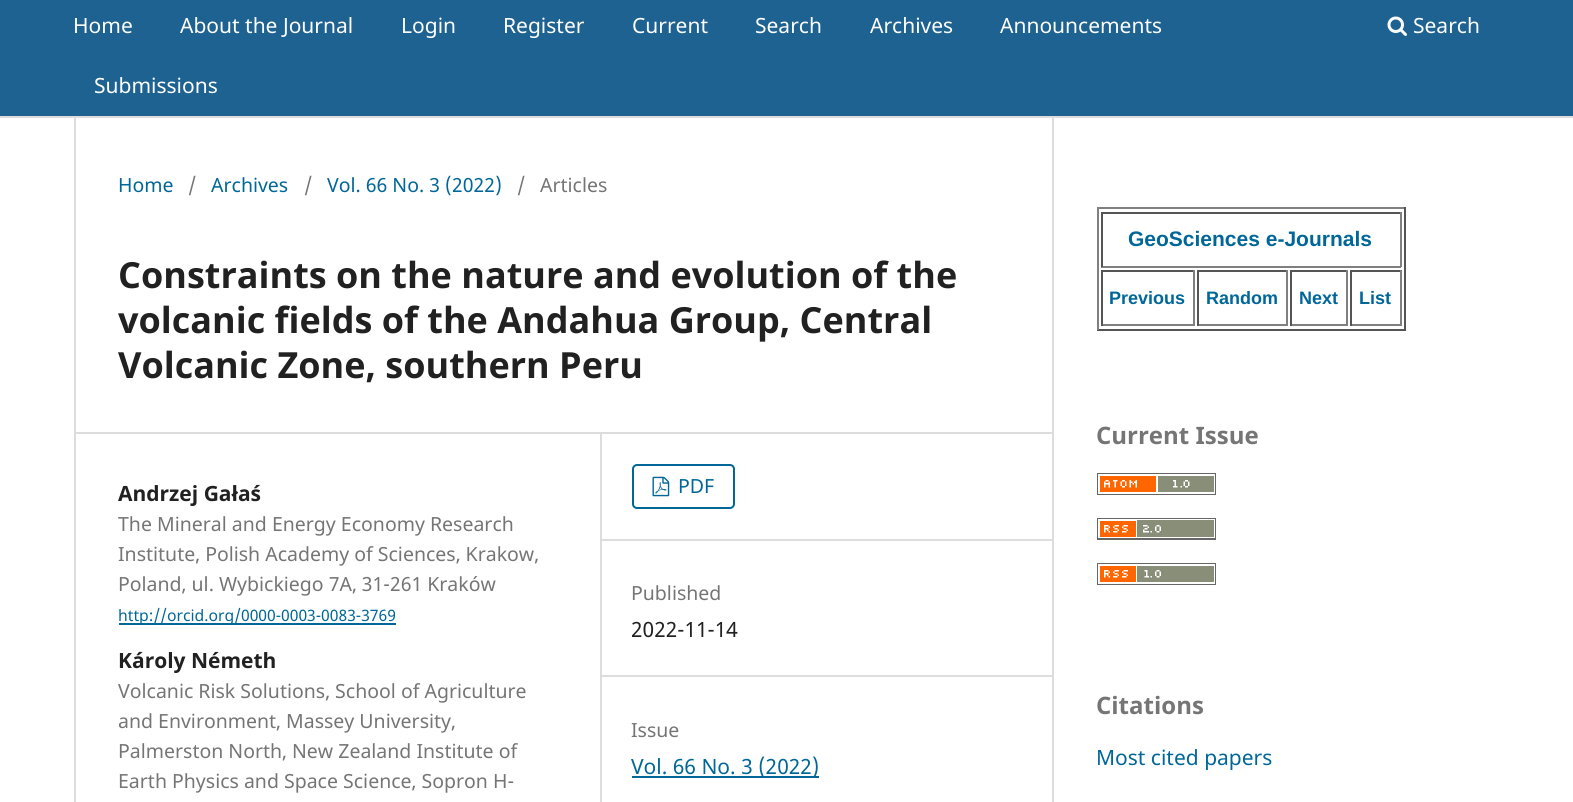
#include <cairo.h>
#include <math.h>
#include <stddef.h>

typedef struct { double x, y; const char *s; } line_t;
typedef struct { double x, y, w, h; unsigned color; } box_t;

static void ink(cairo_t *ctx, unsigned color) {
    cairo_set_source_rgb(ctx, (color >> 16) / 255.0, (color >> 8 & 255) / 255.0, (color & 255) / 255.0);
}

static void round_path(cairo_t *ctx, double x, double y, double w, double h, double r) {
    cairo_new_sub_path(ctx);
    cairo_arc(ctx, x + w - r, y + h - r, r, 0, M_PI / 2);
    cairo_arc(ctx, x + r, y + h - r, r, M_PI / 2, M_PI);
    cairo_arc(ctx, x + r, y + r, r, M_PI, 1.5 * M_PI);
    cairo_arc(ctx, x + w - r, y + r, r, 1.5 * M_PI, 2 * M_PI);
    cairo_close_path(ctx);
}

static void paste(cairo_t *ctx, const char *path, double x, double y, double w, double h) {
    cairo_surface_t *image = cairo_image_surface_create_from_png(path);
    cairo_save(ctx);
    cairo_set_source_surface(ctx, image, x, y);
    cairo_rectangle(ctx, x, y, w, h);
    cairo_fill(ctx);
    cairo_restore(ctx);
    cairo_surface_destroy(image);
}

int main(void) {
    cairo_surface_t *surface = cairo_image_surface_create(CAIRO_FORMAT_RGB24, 1573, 802);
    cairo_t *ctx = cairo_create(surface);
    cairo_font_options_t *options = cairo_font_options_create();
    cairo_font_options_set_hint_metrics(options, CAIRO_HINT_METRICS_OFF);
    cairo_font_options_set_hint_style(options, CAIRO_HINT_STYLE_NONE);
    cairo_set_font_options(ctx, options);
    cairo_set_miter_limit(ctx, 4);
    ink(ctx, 0xFFFFFF);
    cairo_paint(ctx);
    ink(ctx, 0x1E6292);
    cairo_rectangle(ctx, 0, 0, 1573, 116);
    cairo_fill(ctx);
    ink(ctx, 0xDDDDDD);
    cairo_rectangle(ctx, 0, 116, 1573, 2);
    cairo_fill(ctx);
    cairo_select_font_face(ctx, "Noto Sans", CAIRO_FONT_SLANT_NORMAL, CAIRO_FONT_WEIGHT_NORMAL);
    cairo_set_font_size(ctx, 21);
    ink(ctx, 0xFFFFFF);
    {
        static const line_t items[] = {
            {73, 33, "Home"},
            {180, 33, "About the Journal"},
            {401, 33, "Login"},
            {503, 33, "Register"},
            {632, 33, "Current"},
            {755, 33, "Search"},
            {870, 33, "Archives"},
            {1000, 33, "Announcements"},
            {94, 93, "Submissions"},
        };
        for (size_t i = 0; i < sizeof items / sizeof *items; i++) {
            cairo_move_to(ctx, items[i].x, items[i].y);
            cairo_show_text(ctx, items[i].s);
        }
    }
    paste(ctx, "media/1.png", 1387, 16, 20, 20);
    cairo_move_to(ctx, 1413, 33);
    cairo_show_text(ctx, "Search");
    ink(ctx, 0xDDDDDD);
    cairo_rectangle(ctx, 74, 432, 978, 2);
    cairo_fill(ctx);
    cairo_rectangle(ctx, 74, 117, 2, 685);
    cairo_fill(ctx);
    cairo_set_font_size(ctx, 19.5);
    ink(ctx, 0x006798);
    cairo_move_to(ctx, 118, 192);
    cairo_show_text(ctx, "Home");
    ink(ctx, 0x757575);
    cairo_move_to(ctx, 188, 192);
    cairo_show_text(ctx, "/");
    ink(ctx, 0x006798);
    cairo_move_to(ctx, 211, 192);
    cairo_show_text(ctx, "Archives");
    ink(ctx, 0x757575);
    cairo_move_to(ctx, 304, 192);
    cairo_show_text(ctx, "/");
    ink(ctx, 0x006798);
    cairo_move_to(ctx, 327, 192);
    cairo_show_text(ctx, "Vol. 66 No. 3 (2022)");
    ink(ctx, 0x757575);
    cairo_move_to(ctx, 517, 192);
    cairo_show_text(ctx, "/");
    cairo_move_to(ctx, 540, 192);
    cairo_show_text(ctx, "Articles");
    cairo_select_font_face(ctx, "Noto Sans", CAIRO_FONT_SLANT_NORMAL, CAIRO_FONT_WEIGHT_BOLD);
    cairo_set_font_size(ctx, 36);
    ink(ctx, 0x212121);
    {
        static const line_t items[] = {
            {118, 288, "Constraints on the nature and evolution of the"},
            {118, 333, "volcanic fields of the Andahua Group, Central"},
            {118, 378, "Volcanic Zone, southern Peru"},
        };
        for (size_t i = 0; i < sizeof items / sizeof *items; i++) {
            cairo_move_to(ctx, items[i].x, items[i].y);
            cairo_show_text(ctx, items[i].s);
        }
    }
    ink(ctx, 0xDDDDDD);
    cairo_rectangle(ctx, 600, 434, 2, 368);
    cairo_fill(ctx);
    cairo_set_font_size(ctx, 21);
    ink(ctx, 0x212121);
    cairo_move_to(ctx, 118, 501);
    cairo_show_text(ctx, "Andrzej Gałaś");
    cairo_select_font_face(ctx, "Noto Sans", CAIRO_FONT_SLANT_NORMAL, CAIRO_FONT_WEIGHT_NORMAL);
    cairo_set_font_size(ctx, 19.5);
    ink(ctx, 0x757575);
    {
        static const line_t items[] = {
            {118, 531, "The Mineral and Energy Economy Research"},
            {118, 561, "Institute, Polish Academy of Sciences, Krakow,"},
            {118, 591, "Poland, ul. Wybickiego 7A, 31-261 Kraków"},
        };
        for (size_t i = 0; i < sizeof items / sizeof *items; i++) {
            cairo_move_to(ctx, items[i].x, items[i].y);
            cairo_show_text(ctx, items[i].s);
        }
    }
    ink(ctx, 0x006798);
    cairo_rectangle(ctx, 119, 623, 277, 2);
    cairo_fill(ctx);
    cairo_set_font_size(ctx, 15.75);
    cairo_move_to(ctx, 118, 621);
    cairo_show_text(ctx, "http://orcid.org/0000-0003-0083-3769");
    cairo_select_font_face(ctx, "Noto Sans", CAIRO_FONT_SLANT_NORMAL, CAIRO_FONT_WEIGHT_BOLD);
    cairo_set_font_size(ctx, 21);
    ink(ctx, 0x212121);
    cairo_move_to(ctx, 118, 668);
    cairo_show_text(ctx, "Károly Németh");
    cairo_select_font_face(ctx, "Noto Sans", CAIRO_FONT_SLANT_NORMAL, CAIRO_FONT_WEIGHT_NORMAL);
    cairo_set_font_size(ctx, 19.5);
    ink(ctx, 0x757575);
    {
        static const line_t items[] = {
            {118, 698, "Volcanic Risk Solutions, School of Agriculture"},
            {118, 728, "and Environment, Massey University,"},
            {118, 758, "Palmerston North, New Zealand Institute of"},
            {118, 788, "Earth Physics and Space Science, Sopron H-"},
        };
        for (size_t i = 0; i < sizeof items / sizeof *items; i++) {
            cairo_move_to(ctx, items[i].x, items[i].y);
            cairo_show_text(ctx, items[i].s);
        }
    }
    ink(ctx, 0xDDDDDD);
    cairo_rectangle(ctx, 602, 539, 450, 2);
    cairo_fill(ctx);
    round_path(ctx, 633, 465, 101, 43, 4);
    ink(ctx, 0x006798);
    cairo_stroke(ctx);
    paste(ctx, "media/2.png", 652, 476, 18, 21);
    cairo_move_to(ctx, 678, 493);
    cairo_show_text(ctx, "PDF");
    ink(ctx, 0xDDDDDD);
    cairo_rectangle(ctx, 602, 675, 450, 2);
    cairo_fill(ctx);
    ink(ctx, 0x757575);
    cairo_move_to(ctx, 631, 600);
    cairo_show_text(ctx, "Published");
    cairo_set_font_size(ctx, 21);
    ink(ctx, 0x212121);
    cairo_move_to(ctx, 631, 637);
    cairo_show_text(ctx, "2022-11-14");
    cairo_set_font_size(ctx, 19.5);
    ink(ctx, 0x757575);
    cairo_move_to(ctx, 631, 737);
    cairo_show_text(ctx, "Issue");
    ink(ctx, 0x006798);
    cairo_rectangle(ctx, 632, 776, 187, 2);
    cairo_fill(ctx);
    cairo_set_font_size(ctx, 21);
    cairo_move_to(ctx, 631, 774);
    cairo_show_text(ctx, "Vol. 66 No. 3 (2022)");
    {
        static const box_t items[] = {
            {1052, 117, 2, 685, 0xDDDDDD},
            {1097, 207, 309, 2, 0x808080},
            {1404, 207, 2, 123, 0x555555},
            {1097, 329, 309, 2, 0x555555},
            {1097, 207, 2, 123, 0x808080},
            {1101, 212, 300, 2, 0x555555},
            {1400, 212, 2, 55, 0x808080},
            {1101, 266, 300, 2, 0x808080},
            {1101, 212, 2, 55, 0x555555},
        };
        for (size_t i = 0; i < sizeof items / sizeof *items; i++) {
            ink(ctx, items[i].color);
            cairo_rectangle(ctx, items[i].x, items[i].y, items[i].w, items[i].h);
            cairo_fill(ctx);
        }
    }
    cairo_select_font_face(ctx, "Liberation Sans", CAIRO_FONT_SLANT_NORMAL, CAIRO_FONT_WEIGHT_BOLD);
    ink(ctx, 0x006798);
    cairo_move_to(ctx, 1128, 246);
    cairo_show_text(ctx, "GeoSciences e-Journals");
    {
        static const box_t items[] = {
            {1101, 270, 93, 2, 0x555555},
            {1193, 270, 2, 56, 0x808080},
            {1101, 324, 93, 2, 0x808080},
            {1101, 270, 2, 56, 0x555555},
        };
        for (size_t i = 0; i < sizeof items / sizeof *items; i++) {
            ink(ctx, items[i].color);
            cairo_rectangle(ctx, items[i].x, items[i].y, items[i].w, items[i].h);
            cairo_fill(ctx);
        }
    }
    cairo_set_font_size(ctx, 18);
    ink(ctx, 0x006798);
    cairo_move_to(ctx, 1109, 304);
    cairo_show_text(ctx, "Previous");
    {
        static const box_t items[] = {
            {1197, 270, 90, 2, 0x555555},
            {1286, 270, 2, 56, 0x808080},
            {1197, 324, 90, 2, 0x808080},
            {1197, 270, 2, 56, 0x555555},
        };
        for (size_t i = 0; i < sizeof items / sizeof *items; i++) {
            ink(ctx, items[i].color);
            cairo_rectangle(ctx, items[i].x, items[i].y, items[i].w, items[i].h);
            cairo_fill(ctx);
        }
    }
    ink(ctx, 0x006798);
    cairo_move_to(ctx, 1206, 304);
    cairo_show_text(ctx, "Random");
    {
        static const box_t items[] = {
            {1290, 270, 57, 2, 0x555555},
            {1346, 270, 2, 56, 0x808080},
            {1290, 324, 57, 2, 0x808080},
            {1290, 270, 2, 56, 0x555555},
        };
        for (size_t i = 0; i < sizeof items / sizeof *items; i++) {
            ink(ctx, items[i].color);
            cairo_rectangle(ctx, items[i].x, items[i].y, items[i].w, items[i].h);
            cairo_fill(ctx);
        }
    }
    ink(ctx, 0x006798);
    cairo_move_to(ctx, 1299, 304);
    cairo_show_text(ctx, "Next");
    {
        static const box_t items[] = {
            {1350, 270, 51, 2, 0x555555},
            {1400, 270, 2, 56, 0x808080},
            {1350, 324, 51, 2, 0x808080},
            {1350, 270, 2, 56, 0x555555},
        };
        for (size_t i = 0; i < sizeof items / sizeof *items; i++) {
            ink(ctx, items[i].color);
            cairo_rectangle(ctx, items[i].x, items[i].y, items[i].w, items[i].h);
            cairo_fill(ctx);
        }
    }
    ink(ctx, 0x006798);
    cairo_move_to(ctx, 1359, 304);
    cairo_show_text(ctx, "List");
    cairo_select_font_face(ctx, "Noto Sans", CAIRO_FONT_SLANT_NORMAL, CAIRO_FONT_WEIGHT_BOLD);
    cairo_set_font_size(ctx, 24);
    ink(ctx, 0x757575);
    cairo_move_to(ctx, 1096, 444);
    cairo_show_text(ctx, "Current Issue");
    paste(ctx, "media/3.png", 1097, 473, 119, 22);
    paste(ctx, "media/4.png", 1097, 518, 119, 22);
    paste(ctx, "media/5.png", 1097, 563, 119, 22);
    cairo_move_to(ctx, 1096, 714);
    cairo_show_text(ctx, "Citations");
    cairo_select_font_face(ctx, "Noto Sans", CAIRO_FONT_SLANT_NORMAL, CAIRO_FONT_WEIGHT_NORMAL);
    cairo_set_font_size(ctx, 21);
    ink(ctx, 0x006798);
    cairo_move_to(ctx, 1096, 765);
    cairo_show_text(ctx, "Most cited papers");
    cairo_surface_write_to_png(surface, "image.png");
    cairo_font_options_destroy(options);
    cairo_destroy(ctx);
    cairo_surface_destroy(surface);
    return 0;
}
